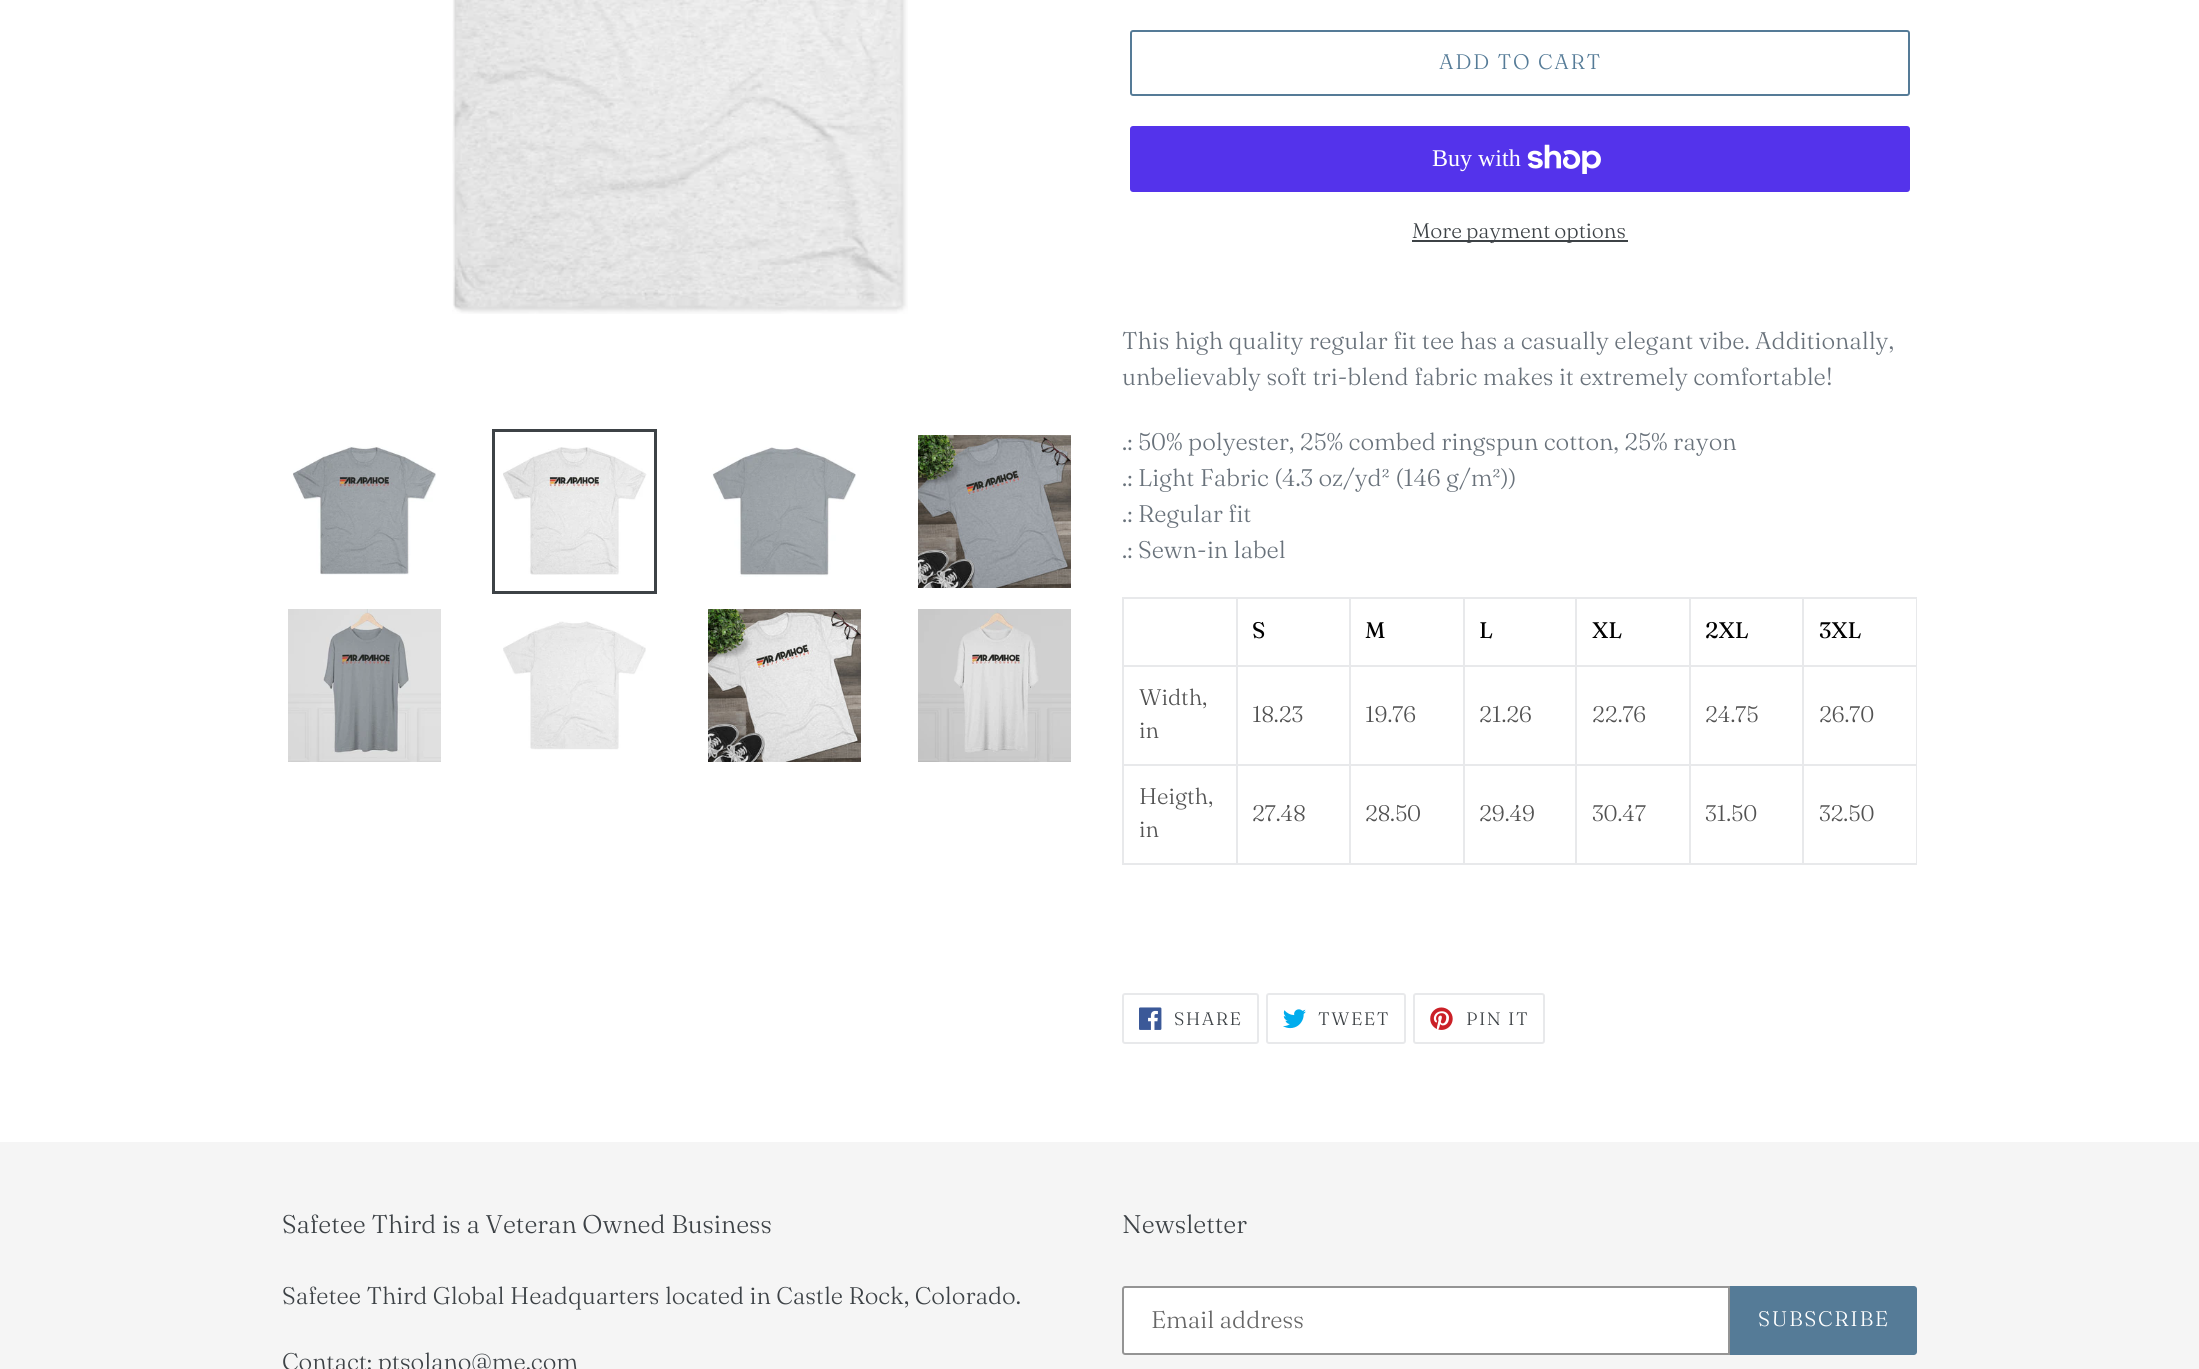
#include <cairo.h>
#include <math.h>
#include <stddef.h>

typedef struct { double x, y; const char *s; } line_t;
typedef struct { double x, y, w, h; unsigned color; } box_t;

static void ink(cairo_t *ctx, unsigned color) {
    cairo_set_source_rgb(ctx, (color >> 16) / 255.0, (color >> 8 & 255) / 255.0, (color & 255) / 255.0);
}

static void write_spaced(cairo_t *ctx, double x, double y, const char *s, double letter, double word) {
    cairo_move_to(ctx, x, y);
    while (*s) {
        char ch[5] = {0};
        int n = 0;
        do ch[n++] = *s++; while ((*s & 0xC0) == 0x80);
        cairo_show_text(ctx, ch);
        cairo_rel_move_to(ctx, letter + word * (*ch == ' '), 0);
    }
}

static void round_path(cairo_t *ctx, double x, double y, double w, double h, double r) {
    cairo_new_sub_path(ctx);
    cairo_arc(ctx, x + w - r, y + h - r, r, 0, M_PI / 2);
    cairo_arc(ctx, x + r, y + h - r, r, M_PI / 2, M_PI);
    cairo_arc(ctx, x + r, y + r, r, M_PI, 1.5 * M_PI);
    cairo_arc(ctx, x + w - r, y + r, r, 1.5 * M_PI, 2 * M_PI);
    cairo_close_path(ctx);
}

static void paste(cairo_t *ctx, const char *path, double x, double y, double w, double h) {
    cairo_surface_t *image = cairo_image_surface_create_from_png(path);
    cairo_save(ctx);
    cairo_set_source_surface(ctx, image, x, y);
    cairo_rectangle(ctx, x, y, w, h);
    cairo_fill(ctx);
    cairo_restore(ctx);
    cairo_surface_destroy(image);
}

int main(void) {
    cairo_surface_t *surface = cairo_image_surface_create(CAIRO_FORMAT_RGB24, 2199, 1369);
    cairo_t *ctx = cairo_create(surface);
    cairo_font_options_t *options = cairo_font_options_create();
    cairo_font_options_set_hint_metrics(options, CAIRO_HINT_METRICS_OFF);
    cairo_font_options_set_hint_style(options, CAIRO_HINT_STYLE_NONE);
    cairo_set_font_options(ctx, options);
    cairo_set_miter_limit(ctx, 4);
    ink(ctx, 0xFFFFFF);
    cairo_paint(ctx);
    paste(ctx, "media/1.png", 452, 0, 456, 314);
    paste(ctx, "media/2.png", 292, 446, 144, 129);
    cairo_rectangle(ctx, 493.5, 430.5, 162, 162);
    ink(ctx, 0x3D4246);
    cairo_set_line_width(ctx, 3);
    cairo_stroke(ctx);
    paste(ctx, "media/3.png", 503, 447, 144, 128);
    paste(ctx, "media/4.png", 712, 447, 144, 130);
    paste(ctx, "media/5.png", 918, 435, 153, 153);
    paste(ctx, "media/6.png", 288, 609, 153, 153);
    paste(ctx, "media/7.png", 503, 621, 143, 129);
    paste(ctx, "media/8.png", 708, 609, 153, 153);
    paste(ctx, "media/9.png", 918, 609, 153, 153);
    round_path(ctx, 1131, 31, 778, 64, 2);
    ink(ctx, 0x557B97);
    cairo_set_line_width(ctx, 2);
    cairo_stroke(ctx);
    cairo_select_font_face(ctx, "Fraunces Light", CAIRO_FONT_SLANT_NORMAL, CAIRO_FONT_WEIGHT_NORMAL);
    cairo_set_font_size(ctx, 21);
    write_spaced(ctx, 1439, 69, "ADD TO CART", 1.75, 0);
    ink(ctx, 0x5433EB);
    round_path(ctx, 1130, 126, 780, 66, 3);
    cairo_fill(ctx);
    cairo_select_font_face(ctx, "Liberation Serif", CAIRO_FONT_SLANT_NORMAL, CAIRO_FONT_WEIGHT_NORMAL);
    cairo_set_font_size(ctx, 24);
    ink(ctx, 0xFFFFFF);
    cairo_move_to(ctx, 1432, 166);
    cairo_show_text(ctx, "Buy with");
    paste(ctx, "media/10.png", 1527, 144, 74, 30);
    ink(ctx, 0x3D4246);
    cairo_rectangle(ctx, 1412, 240, 216, 2);
    cairo_fill(ctx);
    cairo_select_font_face(ctx, "Fraunces Light", CAIRO_FONT_SLANT_NORMAL, CAIRO_FONT_WEIGHT_NORMAL);
    cairo_set_font_size(ctx, 21);
    write_spaced(ctx, 1412, 238, "More payment options", 0, -1);
    cairo_select_font_face(ctx, "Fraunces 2 Light", CAIRO_FONT_SLANT_NORMAL, CAIRO_FONT_WEIGHT_NORMAL);
    cairo_set_font_size(ctx, 24);
    ink(ctx, 0x69727B);
    {
        static const line_t items[] = {
            {1122, 349, "This high quality regular fit tee has a casually elegant vibe. Additionally,"},
            {1122, 385, "unbelievably soft tri-blend fabric makes it extremely comfortable!"},
            {1122, 450, ".: 50% polyester, 25% combed ringspun cotton, 25% rayon"},
            {1122, 486, ".: Light Fabric (4.3 oz/yd² (146 g/m²))"},
            {1122, 522, ".: Regular fit"},
            {1122, 558, ".: Sewn-in label"},
        };
        for (size_t i = 0; i < sizeof items / sizeof *items; i++) {
            cairo_move_to(ctx, items[i].x, items[i].y);
            cairo_show_text(ctx, items[i].s);
        }
    }
    {
        static const box_t items[] = {
            {1802, 597, 115, 2, 0xE8E9EB},
            {1916, 665, 1, 199, 0xE8E9EB},
            {1916, 597, 1, 69, 0xE8E9EB},
            {1802, 863, 115, 2, 0xE8E9EB},
            {1802, 764, 2, 100, 0xE8E9EB},
            {1802, 764, 115, 2, 0xE8E9EB},
            {1802, 665, 2, 100, 0xE8E9EB},
            {1802, 665, 115, 2, 0xE8E9EB},
            {1802, 597, 2, 69, 0xE8E9EB},
            {1689, 597, 114, 2, 0xE8E9EB},
            {1689, 863, 114, 2, 0xE8E9EB},
            {1689, 764, 2, 100, 0xE8E9EB},
            {1689, 764, 114, 2, 0xE8E9EB},
            {1689, 665, 2, 100, 0xE8E9EB},
            {1689, 665, 114, 2, 0xE8E9EB},
            {1689, 597, 2, 69, 0xE8E9EB},
            {1575, 597, 116, 2, 0xE8E9EB},
            {1575, 863, 116, 2, 0xE8E9EB},
            {1575, 764, 2, 100, 0xE8E9EB},
            {1575, 764, 116, 2, 0xE8E9EB},
            {1575, 665, 2, 100, 0xE8E9EB},
            {1575, 665, 116, 2, 0xE8E9EB},
            {1575, 597, 2, 69, 0xE8E9EB},
            {1463, 597, 114, 2, 0xE8E9EB},
            {1463, 863, 114, 2, 0xE8E9EB},
            {1463, 764, 2, 100, 0xE8E9EB},
            {1463, 764, 114, 2, 0xE8E9EB},
            {1463, 665, 2, 100, 0xE8E9EB},
            {1463, 665, 114, 2, 0xE8E9EB},
            {1463, 597, 2, 69, 0xE8E9EB},
            {1349, 597, 115, 2, 0xE8E9EB},
            {1349, 863, 115, 2, 0xE8E9EB},
            {1349, 764, 2, 100, 0xE8E9EB},
            {1349, 764, 115, 2, 0xE8E9EB},
            {1349, 665, 2, 100, 0xE8E9EB},
            {1349, 665, 115, 2, 0xE8E9EB},
            {1349, 597, 2, 69, 0xE8E9EB},
            {1236, 597, 114, 2, 0xE8E9EB},
            {1236, 863, 114, 2, 0xE8E9EB},
            {1236, 764, 2, 100, 0xE8E9EB},
            {1236, 764, 114, 2, 0xE8E9EB},
            {1236, 665, 2, 100, 0xE8E9EB},
            {1236, 665, 114, 2, 0xE8E9EB},
            {1236, 597, 2, 69, 0xE8E9EB},
            {1122, 597, 116, 2, 0xE8E9EB},
            {1122, 863, 116, 2, 0xE8E9EB},
            {1122, 764, 2, 100, 0xE8E9EB},
            {1122, 764, 116, 2, 0xE8E9EB},
            {1122, 665, 2, 100, 0xE8E9EB},
            {1122, 665, 116, 2, 0xE8E9EB},
            {1122, 597, 2, 69, 0xE8E9EB},
        };
        for (size_t i = 0; i < sizeof items / sizeof *items; i++) {
            ink(ctx, items[i].color);
            cairo_rectangle(ctx, items[i].x, items[i].y, items[i].w, items[i].h);
            cairo_fill(ctx);
        }
    }
    cairo_select_font_face(ctx, "Fraunces", CAIRO_FONT_SLANT_NORMAL, CAIRO_FONT_WEIGHT_NORMAL);
    cairo_set_font_size(ctx, 22.5);
    ink(ctx, 0x000000);
    {
        static const line_t items[] = {
            {1252, 638, "S"},
            {1365, 638, "M"},
            {1479, 638, "L"},
            {1592, 638, "XL"},
            {1705, 638, "2XL"},
            {1819, 638, "3XL"},
        };
        for (size_t i = 0; i < sizeof items / sizeof *items; i++) {
            cairo_move_to(ctx, items[i].x, items[i].y);
            cairo_show_text(ctx, items[i].s);
        }
    }
    cairo_select_font_face(ctx, "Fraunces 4 Light", CAIRO_FONT_SLANT_NORMAL, CAIRO_FONT_WEIGHT_NORMAL);
    ink(ctx, 0x525252);
    {
        static const line_t items[] = {
            {1139, 705, "Width,"},
            {1139, 738, "in"},
            {1252, 722, "18.23"},
            {1365, 722, "19.76"},
            {1479, 722, "21.26"},
            {1592, 722, "22.76"},
            {1705, 722, "24.75"},
            {1819, 722, "26.70"},
            {1139, 804, "Heigth,"},
            {1139, 837, "in"},
            {1252, 821, "27.48"},
            {1365, 821, "28.50"},
            {1479, 821, "29.49"},
            {1592, 821, "30.47"},
            {1705, 821, "31.50"},
            {1819, 821, "32.50"},
        };
        for (size_t i = 0; i < sizeof items / sizeof *items; i++) {
            cairo_move_to(ctx, items[i].x, items[i].y);
            cairo_show_text(ctx, items[i].s);
        }
    }
    round_path(ctx, 1123, 994, 135, 49, 2);
    ink(ctx, 0xE8E9EB);
    cairo_stroke(ctx);
    paste(ctx, "media/11.png", 1139, 1007, 23, 23);
    cairo_select_font_face(ctx, "Fraunces Light", CAIRO_FONT_SLANT_NORMAL, CAIRO_FONT_WEIGHT_NORMAL);
    cairo_set_font_size(ctx, 18);
    ink(ctx, 0x3D4246);
    write_spaced(ctx, 1174, 1025, "SHARE", 1.5, 0);
    round_path(ctx, 1267, 994, 138, 49, 2);
    ink(ctx, 0xE8E9EB);
    cairo_stroke(ctx);
    paste(ctx, "media/12.png", 1283, 1009, 23, 20);
    ink(ctx, 0x3D4246);
    write_spaced(ctx, 1318, 1025, "TWEET", 1.5, 0);
    round_path(ctx, 1414, 994, 130, 49, 2);
    ink(ctx, 0xE8E9EB);
    cairo_stroke(ctx);
    paste(ctx, "media/13.png", 1430, 1007, 23, 23);
    ink(ctx, 0x3D4246);
    write_spaced(ctx, 1466, 1025, "PIN IT", 1.5, 0);
    ink(ctx, 0xF5F5F5);
    cairo_rectangle(ctx, 0, 1142, 2199, 227);
    cairo_fill(ctx);
    cairo_select_font_face(ctx, "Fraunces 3 Light", CAIRO_FONT_SLANT_NORMAL, CAIRO_FONT_WEIGHT_NORMAL);
    cairo_set_font_size(ctx, 25.5);
    ink(ctx, 0x3D4246);
    cairo_move_to(ctx, 282, 1233);
    cairo_show_text(ctx, "Safetee Third is a Veteran Owned Business");
    cairo_select_font_face(ctx, "Fraunces 2 Light", CAIRO_FONT_SLANT_NORMAL, CAIRO_FONT_WEIGHT_NORMAL);
    cairo_set_font_size(ctx, 24);
    cairo_move_to(ctx, 282, 1304);
    cairo_show_text(ctx, "Safetee Third Global Headquarters located in Castle Rock, Colorado.");
    cairo_move_to(ctx, 282, 1370);
    cairo_show_text(ctx, "Contact: ptsolano@me.com");
    cairo_select_font_face(ctx, "Fraunces 3 Light", CAIRO_FONT_SLANT_NORMAL, CAIRO_FONT_WEIGHT_NORMAL);
    cairo_set_font_size(ctx, 25.5);
    cairo_move_to(ctx, 1122, 1233);
    cairo_show_text(ctx, "Newsletter");
    ink(ctx, 0xFFFFFF);
    cairo_new_path(ctx);
    cairo_move_to(ctx, 1125, 1287);
    cairo_line_to(ctx, 1729, 1287);
    cairo_line_to(ctx, 1729, 1354);
    cairo_line_to(ctx, 1125, 1354);
    cairo_curve_to(ctx, 1124, 1354, 1123, 1353, 1123, 1352);
    cairo_line_to(ctx, 1123, 1289);
    cairo_curve_to(ctx, 1123, 1288, 1124, 1287, 1125, 1287);
    cairo_close_path(ctx);
    cairo_fill_preserve(ctx);
    ink(ctx, 0x949494);
    cairo_stroke(ctx);
    cairo_select_font_face(ctx, "Fraunces 2 Light", CAIRO_FONT_SLANT_NORMAL, CAIRO_FONT_WEIGHT_NORMAL);
    cairo_set_font_size(ctx, 24);
    ink(ctx, 0x666666);
    cairo_move_to(ctx, 1151, 1328);
    cairo_show_text(ctx, "Email address");
    ink(ctx, 0x557B97);
    cairo_new_path(ctx);
    cairo_move_to(ctx, 1730, 1286);
    cairo_line_to(ctx, 1914, 1286);
    cairo_curve_to(ctx, 1915.5, 1286, 1917, 1287.5, 1917, 1289);
    cairo_line_to(ctx, 1917, 1352);
    cairo_curve_to(ctx, 1917, 1353.5, 1915.5, 1355, 1914, 1355);
    cairo_line_to(ctx, 1730, 1355);
    cairo_close_path(ctx);
    cairo_fill(ctx);
    cairo_select_font_face(ctx, "Fraunces Light", CAIRO_FONT_SLANT_NORMAL, CAIRO_FONT_WEIGHT_NORMAL);
    cairo_set_font_size(ctx, 21);
    ink(ctx, 0xFFFFFF);
    write_spaced(ctx, 1758, 1326, "SUBSCRIBE", 1.75, 0);
    cairo_surface_write_to_png(surface, "image.png");
    cairo_font_options_destroy(options);
    cairo_destroy(ctx);
    cairo_surface_destroy(surface);
    return 0;
}
